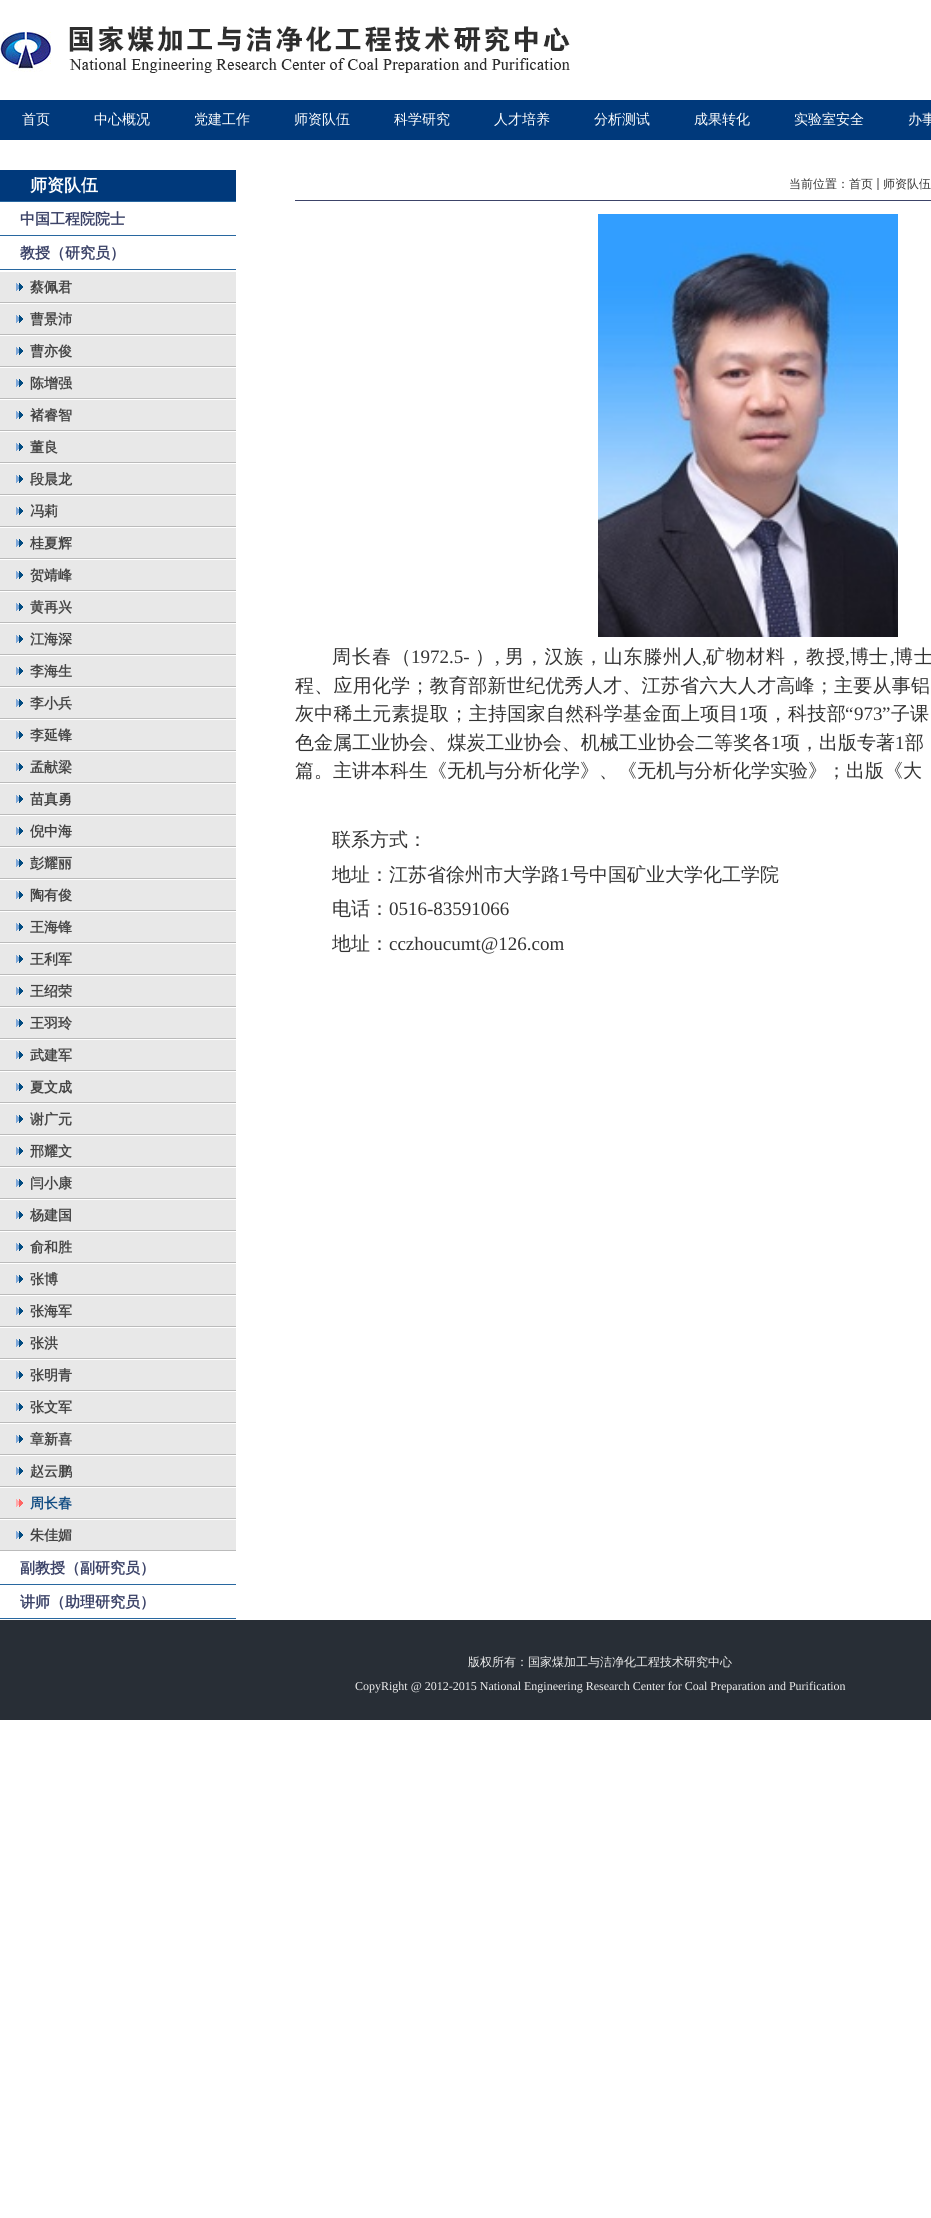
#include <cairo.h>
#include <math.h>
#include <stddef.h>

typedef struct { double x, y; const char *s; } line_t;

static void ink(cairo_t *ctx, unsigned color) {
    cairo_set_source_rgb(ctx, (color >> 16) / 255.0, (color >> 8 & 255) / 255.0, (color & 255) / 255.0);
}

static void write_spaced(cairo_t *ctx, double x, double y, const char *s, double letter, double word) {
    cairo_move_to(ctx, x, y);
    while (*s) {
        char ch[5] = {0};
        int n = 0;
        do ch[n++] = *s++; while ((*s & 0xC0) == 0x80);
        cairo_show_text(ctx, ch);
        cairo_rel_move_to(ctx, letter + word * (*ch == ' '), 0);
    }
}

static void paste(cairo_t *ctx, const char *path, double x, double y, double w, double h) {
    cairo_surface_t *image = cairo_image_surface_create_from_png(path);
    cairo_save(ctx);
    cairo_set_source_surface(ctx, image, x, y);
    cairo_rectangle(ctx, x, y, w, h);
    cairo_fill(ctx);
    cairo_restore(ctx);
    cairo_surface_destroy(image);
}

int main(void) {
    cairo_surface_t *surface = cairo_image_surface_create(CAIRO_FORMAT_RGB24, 931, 2218);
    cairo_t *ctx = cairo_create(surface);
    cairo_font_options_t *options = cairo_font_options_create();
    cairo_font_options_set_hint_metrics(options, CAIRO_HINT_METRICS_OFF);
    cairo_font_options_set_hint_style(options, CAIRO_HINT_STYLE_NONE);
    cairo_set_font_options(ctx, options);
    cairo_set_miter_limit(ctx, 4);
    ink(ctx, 0xFFFFFF);
    cairo_paint(ctx);
    paste(ctx, "media/1.png", 0, 26, 570, 47);
    ink(ctx, 0x00397B);
    cairo_rectangle(ctx, 0, 100, 931, 40);
    cairo_fill(ctx);
    cairo_select_font_face(ctx, "WenQuanYi Zen Hei Medium", CAIRO_FONT_SLANT_NORMAL, CAIRO_FONT_WEIGHT_NORMAL);
    cairo_set_font_size(ctx, 14);
    ink(ctx, 0xFFFFFF);
    {
        static const line_t items[] = {
            {22, 124, "首页"},
            {94, 124, "中心概况"},
            {194, 124, "党建工作"},
            {294, 124, "师资队伍"},
            {394, 124, "科学研究"},
            {494, 124, "人才培养"},
            {594, 124, "分析测试"},
            {694, 124, "成果转化"},
            {794, 124, "实验室安全"},
            {908, 124, "办事"},
        };
        for (size_t i = 0; i < sizeof items / sizeof *items; i++) {
            cairo_move_to(ctx, items[i].x, items[i].y);
            cairo_show_text(ctx, items[i].s);
        }
    }
    ink(ctx, 0x00397B);
    cairo_rectangle(ctx, 0, 170, 236, 31);
    cairo_fill(ctx);
    cairo_select_font_face(ctx, "WenQuanYi Zen Hei", CAIRO_FONT_SLANT_NORMAL, CAIRO_FONT_WEIGHT_BOLD);
    cairo_set_font_size(ctx, 17);
    ink(ctx, 0xFFFFFF);
    cairo_move_to(ctx, 30, 191);
    cairo_show_text(ctx, "师资队伍");
    ink(ctx, 0x2867A0);
    cairo_rectangle(ctx, 0, 201, 236, 1);
    cairo_fill(ctx);
    cairo_rectangle(ctx, 0, 235, 236, 1);
    cairo_fill(ctx);
    cairo_set_font_size(ctx, 15);
    ink(ctx, 0x3C4368);
    cairo_move_to(ctx, 20, 224);
    cairo_show_text(ctx, "中国工程院院士");
    ink(ctx, 0x2867A0);
    cairo_rectangle(ctx, 0, 269, 236, 1);
    cairo_fill(ctx);
    ink(ctx, 0x3C4368);
    cairo_move_to(ctx, 20, 258);
    cairo_show_text(ctx, "教授（研究员）");
    ink(ctx, 0xE8E8E8);
    cairo_rectangle(ctx, 0, 272, 236, 30);
    cairo_fill(ctx);
    paste(ctx, "media/2.png", 16, 283, 7, 8);
    ink(ctx, 0xBBBBBB);
    cairo_rectangle(ctx, 0, 302, 236, 1);
    cairo_fill(ctx);
    cairo_set_font_size(ctx, 14);
    ink(ctx, 0x454545);
    cairo_move_to(ctx, 30, 292);
    cairo_show_text(ctx, "蔡佩君");
    ink(ctx, 0xE8E8E8);
    cairo_rectangle(ctx, 0, 304, 236, 30);
    cairo_fill(ctx);
    paste(ctx, "media/2.png", 16, 315, 7, 8);
    ink(ctx, 0xBBBBBB);
    cairo_rectangle(ctx, 0, 334, 236, 1);
    cairo_fill(ctx);
    ink(ctx, 0x454545);
    cairo_move_to(ctx, 30, 324);
    cairo_show_text(ctx, "曹景沛");
    ink(ctx, 0xE8E8E8);
    cairo_rectangle(ctx, 0, 336, 236, 30);
    cairo_fill(ctx);
    paste(ctx, "media/2.png", 16, 347, 7, 8);
    ink(ctx, 0xBBBBBB);
    cairo_rectangle(ctx, 0, 366, 236, 1);
    cairo_fill(ctx);
    ink(ctx, 0x454545);
    cairo_move_to(ctx, 30, 356);
    cairo_show_text(ctx, "曹亦俊");
    ink(ctx, 0xE8E8E8);
    cairo_rectangle(ctx, 0, 368, 236, 30);
    cairo_fill(ctx);
    paste(ctx, "media/2.png", 16, 379, 7, 8);
    ink(ctx, 0xBBBBBB);
    cairo_rectangle(ctx, 0, 398, 236, 1);
    cairo_fill(ctx);
    ink(ctx, 0x454545);
    cairo_move_to(ctx, 30, 388);
    cairo_show_text(ctx, "陈增强");
    ink(ctx, 0xE8E8E8);
    cairo_rectangle(ctx, 0, 400, 236, 30);
    cairo_fill(ctx);
    paste(ctx, "media/2.png", 16, 411, 7, 8);
    ink(ctx, 0xBBBBBB);
    cairo_rectangle(ctx, 0, 430, 236, 1);
    cairo_fill(ctx);
    ink(ctx, 0x454545);
    cairo_move_to(ctx, 30, 420);
    cairo_show_text(ctx, "褚睿智");
    ink(ctx, 0xE8E8E8);
    cairo_rectangle(ctx, 0, 432, 236, 30);
    cairo_fill(ctx);
    paste(ctx, "media/2.png", 16, 443, 7, 8);
    ink(ctx, 0xBBBBBB);
    cairo_rectangle(ctx, 0, 462, 236, 1);
    cairo_fill(ctx);
    ink(ctx, 0x454545);
    cairo_move_to(ctx, 30, 452);
    cairo_show_text(ctx, "董良");
    ink(ctx, 0xE8E8E8);
    cairo_rectangle(ctx, 0, 464, 236, 30);
    cairo_fill(ctx);
    paste(ctx, "media/2.png", 16, 475, 7, 8);
    ink(ctx, 0xBBBBBB);
    cairo_rectangle(ctx, 0, 494, 236, 1);
    cairo_fill(ctx);
    ink(ctx, 0x454545);
    cairo_move_to(ctx, 30, 484);
    cairo_show_text(ctx, "段晨龙");
    ink(ctx, 0xE8E8E8);
    cairo_rectangle(ctx, 0, 496, 236, 30);
    cairo_fill(ctx);
    paste(ctx, "media/2.png", 16, 507, 7, 8);
    ink(ctx, 0xBBBBBB);
    cairo_rectangle(ctx, 0, 526, 236, 1);
    cairo_fill(ctx);
    ink(ctx, 0x454545);
    cairo_move_to(ctx, 30, 516);
    cairo_show_text(ctx, "冯莉");
    ink(ctx, 0xE8E8E8);
    cairo_rectangle(ctx, 0, 528, 236, 30);
    cairo_fill(ctx);
    paste(ctx, "media/2.png", 16, 539, 7, 8);
    ink(ctx, 0xBBBBBB);
    cairo_rectangle(ctx, 0, 558, 236, 1);
    cairo_fill(ctx);
    ink(ctx, 0x454545);
    cairo_move_to(ctx, 30, 548);
    cairo_show_text(ctx, "桂夏辉");
    ink(ctx, 0xE8E8E8);
    cairo_rectangle(ctx, 0, 560, 236, 30);
    cairo_fill(ctx);
    paste(ctx, "media/2.png", 16, 571, 7, 8);
    ink(ctx, 0xBBBBBB);
    cairo_rectangle(ctx, 0, 590, 236, 1);
    cairo_fill(ctx);
    ink(ctx, 0x454545);
    cairo_move_to(ctx, 30, 580);
    cairo_show_text(ctx, "贺靖峰");
    ink(ctx, 0xE8E8E8);
    cairo_rectangle(ctx, 0, 592, 236, 30);
    cairo_fill(ctx);
    paste(ctx, "media/2.png", 16, 603, 7, 8);
    ink(ctx, 0xBBBBBB);
    cairo_rectangle(ctx, 0, 622, 236, 1);
    cairo_fill(ctx);
    ink(ctx, 0x454545);
    cairo_move_to(ctx, 30, 612);
    cairo_show_text(ctx, "黄再兴");
    ink(ctx, 0xE8E8E8);
    cairo_rectangle(ctx, 0, 624, 236, 30);
    cairo_fill(ctx);
    paste(ctx, "media/2.png", 16, 635, 7, 8);
    ink(ctx, 0xBBBBBB);
    cairo_rectangle(ctx, 0, 654, 236, 1);
    cairo_fill(ctx);
    ink(ctx, 0x454545);
    cairo_move_to(ctx, 30, 644);
    cairo_show_text(ctx, "江海深");
    ink(ctx, 0xE8E8E8);
    cairo_rectangle(ctx, 0, 656, 236, 30);
    cairo_fill(ctx);
    paste(ctx, "media/2.png", 16, 667, 7, 8);
    ink(ctx, 0xBBBBBB);
    cairo_rectangle(ctx, 0, 686, 236, 1);
    cairo_fill(ctx);
    ink(ctx, 0x454545);
    cairo_move_to(ctx, 30, 676);
    cairo_show_text(ctx, "李海生");
    ink(ctx, 0xE8E8E8);
    cairo_rectangle(ctx, 0, 688, 236, 30);
    cairo_fill(ctx);
    paste(ctx, "media/2.png", 16, 699, 7, 8);
    ink(ctx, 0xBBBBBB);
    cairo_rectangle(ctx, 0, 718, 236, 1);
    cairo_fill(ctx);
    ink(ctx, 0x454545);
    cairo_move_to(ctx, 30, 708);
    cairo_show_text(ctx, "李小兵");
    ink(ctx, 0xE8E8E8);
    cairo_rectangle(ctx, 0, 720, 236, 30);
    cairo_fill(ctx);
    paste(ctx, "media/2.png", 16, 731, 7, 8);
    ink(ctx, 0xBBBBBB);
    cairo_rectangle(ctx, 0, 750, 236, 1);
    cairo_fill(ctx);
    ink(ctx, 0x454545);
    cairo_move_to(ctx, 30, 740);
    cairo_show_text(ctx, "李延锋");
    ink(ctx, 0xE8E8E8);
    cairo_rectangle(ctx, 0, 752, 236, 30);
    cairo_fill(ctx);
    paste(ctx, "media/2.png", 16, 763, 7, 8);
    ink(ctx, 0xBBBBBB);
    cairo_rectangle(ctx, 0, 782, 236, 1);
    cairo_fill(ctx);
    ink(ctx, 0x454545);
    cairo_move_to(ctx, 30, 772);
    cairo_show_text(ctx, "孟献梁");
    ink(ctx, 0xE8E8E8);
    cairo_rectangle(ctx, 0, 784, 236, 30);
    cairo_fill(ctx);
    paste(ctx, "media/2.png", 16, 795, 7, 8);
    ink(ctx, 0xBBBBBB);
    cairo_rectangle(ctx, 0, 814, 236, 1);
    cairo_fill(ctx);
    ink(ctx, 0x454545);
    cairo_move_to(ctx, 30, 804);
    cairo_show_text(ctx, "苗真勇");
    ink(ctx, 0xE8E8E8);
    cairo_rectangle(ctx, 0, 816, 236, 30);
    cairo_fill(ctx);
    paste(ctx, "media/2.png", 16, 827, 7, 8);
    ink(ctx, 0xBBBBBB);
    cairo_rectangle(ctx, 0, 846, 236, 1);
    cairo_fill(ctx);
    ink(ctx, 0x454545);
    cairo_move_to(ctx, 30, 836);
    cairo_show_text(ctx, "倪中海");
    ink(ctx, 0xE8E8E8);
    cairo_rectangle(ctx, 0, 848, 236, 30);
    cairo_fill(ctx);
    paste(ctx, "media/2.png", 16, 859, 7, 8);
    ink(ctx, 0xBBBBBB);
    cairo_rectangle(ctx, 0, 878, 236, 1);
    cairo_fill(ctx);
    ink(ctx, 0x454545);
    cairo_move_to(ctx, 30, 868);
    cairo_show_text(ctx, "彭耀丽");
    ink(ctx, 0xE8E8E8);
    cairo_rectangle(ctx, 0, 880, 236, 30);
    cairo_fill(ctx);
    paste(ctx, "media/2.png", 16, 891, 7, 8);
    ink(ctx, 0xBBBBBB);
    cairo_rectangle(ctx, 0, 910, 236, 1);
    cairo_fill(ctx);
    ink(ctx, 0x454545);
    cairo_move_to(ctx, 30, 900);
    cairo_show_text(ctx, "陶有俊");
    ink(ctx, 0xE8E8E8);
    cairo_rectangle(ctx, 0, 912, 236, 30);
    cairo_fill(ctx);
    paste(ctx, "media/2.png", 16, 923, 7, 8);
    ink(ctx, 0xBBBBBB);
    cairo_rectangle(ctx, 0, 942, 236, 1);
    cairo_fill(ctx);
    ink(ctx, 0x454545);
    cairo_move_to(ctx, 30, 932);
    cairo_show_text(ctx, "王海锋");
    ink(ctx, 0xE8E8E8);
    cairo_rectangle(ctx, 0, 944, 236, 30);
    cairo_fill(ctx);
    paste(ctx, "media/2.png", 16, 955, 7, 8);
    ink(ctx, 0xBBBBBB);
    cairo_rectangle(ctx, 0, 974, 236, 1);
    cairo_fill(ctx);
    ink(ctx, 0x454545);
    cairo_move_to(ctx, 30, 964);
    cairo_show_text(ctx, "王利军");
    ink(ctx, 0xE8E8E8);
    cairo_rectangle(ctx, 0, 976, 236, 30);
    cairo_fill(ctx);
    paste(ctx, "media/2.png", 16, 987, 7, 8);
    ink(ctx, 0xBBBBBB);
    cairo_rectangle(ctx, 0, 1006, 236, 1);
    cairo_fill(ctx);
    ink(ctx, 0x454545);
    cairo_move_to(ctx, 30, 996);
    cairo_show_text(ctx, "王绍荣");
    ink(ctx, 0xE8E8E8);
    cairo_rectangle(ctx, 0, 1008, 236, 30);
    cairo_fill(ctx);
    paste(ctx, "media/2.png", 16, 1019, 7, 8);
    ink(ctx, 0xBBBBBB);
    cairo_rectangle(ctx, 0, 1038, 236, 1);
    cairo_fill(ctx);
    ink(ctx, 0x454545);
    cairo_move_to(ctx, 30, 1028);
    cairo_show_text(ctx, "王羽玲");
    ink(ctx, 0xE8E8E8);
    cairo_rectangle(ctx, 0, 1040, 236, 30);
    cairo_fill(ctx);
    paste(ctx, "media/2.png", 16, 1051, 7, 8);
    ink(ctx, 0xBBBBBB);
    cairo_rectangle(ctx, 0, 1070, 236, 1);
    cairo_fill(ctx);
    ink(ctx, 0x454545);
    cairo_move_to(ctx, 30, 1060);
    cairo_show_text(ctx, "武建军");
    ink(ctx, 0xE8E8E8);
    cairo_rectangle(ctx, 0, 1072, 236, 30);
    cairo_fill(ctx);
    paste(ctx, "media/2.png", 16, 1083, 7, 8);
    ink(ctx, 0xBBBBBB);
    cairo_rectangle(ctx, 0, 1102, 236, 1);
    cairo_fill(ctx);
    ink(ctx, 0x454545);
    cairo_move_to(ctx, 30, 1092);
    cairo_show_text(ctx, "夏文成");
    ink(ctx, 0xE8E8E8);
    cairo_rectangle(ctx, 0, 1104, 236, 30);
    cairo_fill(ctx);
    paste(ctx, "media/2.png", 16, 1115, 7, 8);
    ink(ctx, 0xBBBBBB);
    cairo_rectangle(ctx, 0, 1134, 236, 1);
    cairo_fill(ctx);
    ink(ctx, 0x454545);
    cairo_move_to(ctx, 30, 1124);
    cairo_show_text(ctx, "谢广元");
    ink(ctx, 0xE8E8E8);
    cairo_rectangle(ctx, 0, 1136, 236, 30);
    cairo_fill(ctx);
    paste(ctx, "media/2.png", 16, 1147, 7, 8);
    ink(ctx, 0xBBBBBB);
    cairo_rectangle(ctx, 0, 1166, 236, 1);
    cairo_fill(ctx);
    ink(ctx, 0x454545);
    cairo_move_to(ctx, 30, 1156);
    cairo_show_text(ctx, "邢耀文");
    ink(ctx, 0xE8E8E8);
    cairo_rectangle(ctx, 0, 1168, 236, 30);
    cairo_fill(ctx);
    paste(ctx, "media/2.png", 16, 1179, 7, 8);
    ink(ctx, 0xBBBBBB);
    cairo_rectangle(ctx, 0, 1198, 236, 1);
    cairo_fill(ctx);
    ink(ctx, 0x454545);
    cairo_move_to(ctx, 30, 1188);
    cairo_show_text(ctx, "闫小康");
    ink(ctx, 0xE8E8E8);
    cairo_rectangle(ctx, 0, 1200, 236, 30);
    cairo_fill(ctx);
    paste(ctx, "media/2.png", 16, 1211, 7, 8);
    ink(ctx, 0xBBBBBB);
    cairo_rectangle(ctx, 0, 1230, 236, 1);
    cairo_fill(ctx);
    ink(ctx, 0x454545);
    cairo_move_to(ctx, 30, 1220);
    cairo_show_text(ctx, "杨建国");
    ink(ctx, 0xE8E8E8);
    cairo_rectangle(ctx, 0, 1232, 236, 30);
    cairo_fill(ctx);
    paste(ctx, "media/2.png", 16, 1243, 7, 8);
    ink(ctx, 0xBBBBBB);
    cairo_rectangle(ctx, 0, 1262, 236, 1);
    cairo_fill(ctx);
    ink(ctx, 0x454545);
    cairo_move_to(ctx, 30, 1252);
    cairo_show_text(ctx, "俞和胜");
    ink(ctx, 0xE8E8E8);
    cairo_rectangle(ctx, 0, 1264, 236, 30);
    cairo_fill(ctx);
    paste(ctx, "media/2.png", 16, 1275, 7, 8);
    ink(ctx, 0xBBBBBB);
    cairo_rectangle(ctx, 0, 1294, 236, 1);
    cairo_fill(ctx);
    ink(ctx, 0x454545);
    cairo_move_to(ctx, 30, 1284);
    cairo_show_text(ctx, "张博");
    ink(ctx, 0xE8E8E8);
    cairo_rectangle(ctx, 0, 1296, 236, 30);
    cairo_fill(ctx);
    paste(ctx, "media/2.png", 16, 1307, 7, 8);
    ink(ctx, 0xBBBBBB);
    cairo_rectangle(ctx, 0, 1326, 236, 1);
    cairo_fill(ctx);
    ink(ctx, 0x454545);
    cairo_move_to(ctx, 30, 1316);
    cairo_show_text(ctx, "张海军");
    ink(ctx, 0xE8E8E8);
    cairo_rectangle(ctx, 0, 1328, 236, 30);
    cairo_fill(ctx);
    paste(ctx, "media/2.png", 16, 1339, 7, 8);
    ink(ctx, 0xBBBBBB);
    cairo_rectangle(ctx, 0, 1358, 236, 1);
    cairo_fill(ctx);
    ink(ctx, 0x454545);
    cairo_move_to(ctx, 30, 1348);
    cairo_show_text(ctx, "张洪");
    ink(ctx, 0xE8E8E8);
    cairo_rectangle(ctx, 0, 1360, 236, 30);
    cairo_fill(ctx);
    paste(ctx, "media/2.png", 16, 1371, 7, 8);
    ink(ctx, 0xBBBBBB);
    cairo_rectangle(ctx, 0, 1390, 236, 1);
    cairo_fill(ctx);
    ink(ctx, 0x454545);
    cairo_move_to(ctx, 30, 1380);
    cairo_show_text(ctx, "张明青");
    ink(ctx, 0xE8E8E8);
    cairo_rectangle(ctx, 0, 1392, 236, 30);
    cairo_fill(ctx);
    paste(ctx, "media/2.png", 16, 1403, 7, 8);
    ink(ctx, 0xBBBBBB);
    cairo_rectangle(ctx, 0, 1422, 236, 1);
    cairo_fill(ctx);
    ink(ctx, 0x454545);
    cairo_move_to(ctx, 30, 1412);
    cairo_show_text(ctx, "张文军");
    ink(ctx, 0xE8E8E8);
    cairo_rectangle(ctx, 0, 1424, 236, 30);
    cairo_fill(ctx);
    paste(ctx, "media/2.png", 16, 1435, 7, 8);
    ink(ctx, 0xBBBBBB);
    cairo_rectangle(ctx, 0, 1454, 236, 1);
    cairo_fill(ctx);
    ink(ctx, 0x454545);
    cairo_move_to(ctx, 30, 1444);
    cairo_show_text(ctx, "章新喜");
    ink(ctx, 0xE8E8E8);
    cairo_rectangle(ctx, 0, 1456, 236, 30);
    cairo_fill(ctx);
    paste(ctx, "media/2.png", 16, 1467, 7, 8);
    ink(ctx, 0xBBBBBB);
    cairo_rectangle(ctx, 0, 1486, 236, 1);
    cairo_fill(ctx);
    ink(ctx, 0x454545);
    cairo_move_to(ctx, 30, 1476);
    cairo_show_text(ctx, "赵云鹏");
    ink(ctx, 0xE8E8E8);
    cairo_rectangle(ctx, 0, 1488, 236, 30);
    cairo_fill(ctx);
    paste(ctx, "media/3.png", 16, 1499, 7, 8);
    ink(ctx, 0xBBBBBB);
    cairo_rectangle(ctx, 0, 1518, 236, 1);
    cairo_fill(ctx);
    ink(ctx, 0x124D83);
    cairo_move_to(ctx, 30, 1508);
    cairo_show_text(ctx, "周长春");
    ink(ctx, 0xE8E8E8);
    cairo_rectangle(ctx, 0, 1520, 236, 30);
    cairo_fill(ctx);
    paste(ctx, "media/2.png", 16, 1531, 7, 8);
    ink(ctx, 0xBBBBBB);
    cairo_rectangle(ctx, 0, 1550, 236, 1);
    cairo_fill(ctx);
    ink(ctx, 0x454545);
    cairo_move_to(ctx, 30, 1540);
    cairo_show_text(ctx, "朱佳媚");
    ink(ctx, 0x2867A0);
    cairo_rectangle(ctx, 0, 1584, 236, 1);
    cairo_fill(ctx);
    cairo_set_font_size(ctx, 15);
    ink(ctx, 0x3C4368);
    cairo_move_to(ctx, 20, 1573);
    cairo_show_text(ctx, "副教授（副研究员）");
    ink(ctx, 0x2867A0);
    cairo_rectangle(ctx, 0, 1618, 236, 1);
    cairo_fill(ctx);
    ink(ctx, 0x3C4368);
    cairo_move_to(ctx, 20, 1607);
    cairo_show_text(ctx, "讲师（助理研究员）");
    cairo_rectangle(ctx, 295, 200, 636, 1);
    cairo_fill(ctx);
    cairo_select_font_face(ctx, "WenQuanYi Zen Hei Medium", CAIRO_FONT_SLANT_NORMAL, CAIRO_FONT_WEIGHT_NORMAL);
    cairo_set_font_size(ctx, 12);
    ink(ctx, 0x333333);
    cairo_move_to(ctx, 789, 188);
    cairo_show_text(ctx, "当前位置：首页");
    ink(ctx, 0xA2A2A2);
    cairo_rectangle(ctx, 877, 178, 2, 12);
    cairo_fill(ctx);
    ink(ctx, 0x333333);
    cairo_move_to(ctx, 883, 188);
    cairo_show_text(ctx, "师资队伍");
    paste(ctx, "media/4.png", 598, 214, 300, 423);
    cairo_set_font_size(ctx, 19);
    write_spaced(ctx, 332, 663, "周长春（", 1, 0);
    cairo_select_font_face(ctx, "Liberation Serif", CAIRO_FONT_SLANT_NORMAL, CAIRO_FONT_WEIGHT_NORMAL);
    cairo_move_to(ctx, 411, 663);
    cairo_show_text(ctx, "1972.5-");
    cairo_select_font_face(ctx, "WenQuanYi Zen Hei Medium", CAIRO_FONT_SLANT_NORMAL, CAIRO_FONT_WEIGHT_NORMAL);
    cairo_move_to(ctx, 475, 663);
    cairo_show_text(ctx, "）");
    cairo_select_font_face(ctx, "Liberation Serif", CAIRO_FONT_SLANT_NORMAL, CAIRO_FONT_WEIGHT_NORMAL);
    cairo_move_to(ctx, 495, 663);
    cairo_show_text(ctx, ",");
    cairo_select_font_face(ctx, "WenQuanYi Zen Hei Medium", CAIRO_FONT_SLANT_NORMAL, CAIRO_FONT_WEIGHT_NORMAL);
    write_spaced(ctx, 505, 663, "男，汉族，山东滕州人", 0.75, 0);
    cairo_select_font_face(ctx, "Liberation Serif", CAIRO_FONT_SLANT_NORMAL, CAIRO_FONT_WEIGHT_NORMAL);
    cairo_move_to(ctx, 702, 663);
    cairo_show_text(ctx, ",");
    cairo_select_font_face(ctx, "WenQuanYi Zen Hei Medium", CAIRO_FONT_SLANT_NORMAL, CAIRO_FONT_WEIGHT_NORMAL);
    write_spaced(ctx, 706, 663, "矿物材料，教授", 1, 0);
    cairo_select_font_face(ctx, "Liberation Serif", CAIRO_FONT_SLANT_NORMAL, CAIRO_FONT_WEIGHT_NORMAL);
    cairo_move_to(ctx, 845, 663);
    cairo_show_text(ctx, ",");
    cairo_select_font_face(ctx, "WenQuanYi Zen Hei Medium", CAIRO_FONT_SLANT_NORMAL, CAIRO_FONT_WEIGHT_NORMAL);
    cairo_move_to(ctx, 850, 663);
    cairo_show_text(ctx, "博士");
    cairo_select_font_face(ctx, "Liberation Serif", CAIRO_FONT_SLANT_NORMAL, CAIRO_FONT_WEIGHT_NORMAL);
    cairo_move_to(ctx, 890, 663);
    cairo_show_text(ctx, ",");
    cairo_select_font_face(ctx, "WenQuanYi Zen Hei Medium", CAIRO_FONT_SLANT_NORMAL, CAIRO_FONT_WEIGHT_NORMAL);
    write_spaced(ctx, 894, 663, "博士", 1, 0);
    write_spaced(ctx, 295, 692, "程、应用化学；教育部新世纪优秀人才、江苏省六大人才高峰；主要从事铝", 0.25, 0);
    write_spaced(ctx, 295, 720, "灰中稀土元素提取；主持国家自然科学基金面上项目", 0.3, 0);
    cairo_select_font_face(ctx, "Liberation Serif", CAIRO_FONT_SLANT_NORMAL, CAIRO_FONT_WEIGHT_NORMAL);
    cairo_move_to(ctx, 739, 720);
    cairo_show_text(ctx, "1");
    cairo_select_font_face(ctx, "WenQuanYi Zen Hei Medium", CAIRO_FONT_SLANT_NORMAL, CAIRO_FONT_WEIGHT_NORMAL);
    write_spaced(ctx, 749, 720, "项，科技部", 0.5, 0);
    cairo_select_font_face(ctx, "Liberation Serif", CAIRO_FONT_SLANT_NORMAL, CAIRO_FONT_WEIGHT_NORMAL);
    write_spaced(ctx, 845, 720, "“", 0.5, 0);
    cairo_move_to(ctx, 854, 720);
    cairo_show_text(ctx, "973");
    cairo_move_to(ctx, 882, 720);
    cairo_show_text(ctx, "”");
    cairo_select_font_face(ctx, "WenQuanYi Zen Hei Medium", CAIRO_FONT_SLANT_NORMAL, CAIRO_FONT_WEIGHT_NORMAL);
    cairo_move_to(ctx, 891, 720);
    cairo_show_text(ctx, "子课");
    write_spaced(ctx, 295, 749, "色金属工业协会、煤炭工业协会、机械工业协会二等奖各", 0.05, 0);
    cairo_select_font_face(ctx, "Liberation Serif", CAIRO_FONT_SLANT_NORMAL, CAIRO_FONT_WEIGHT_NORMAL);
    cairo_move_to(ctx, 771, 749);
    cairo_show_text(ctx, "1");
    cairo_select_font_face(ctx, "WenQuanYi Zen Hei Medium", CAIRO_FONT_SLANT_NORMAL, CAIRO_FONT_WEIGHT_NORMAL);
    cairo_move_to(ctx, 781, 749);
    cairo_show_text(ctx, "项，出版专著");
    cairo_select_font_face(ctx, "Liberation Serif", CAIRO_FONT_SLANT_NORMAL, CAIRO_FONT_WEIGHT_NORMAL);
    cairo_move_to(ctx, 895, 749);
    cairo_show_text(ctx, "1");
    cairo_select_font_face(ctx, "WenQuanYi Zen Hei Medium", CAIRO_FONT_SLANT_NORMAL, CAIRO_FONT_WEIGHT_NORMAL);
    {
        static const line_t items[] = {
            {905, 749, "部"},
            {295, 777, "篇。主讲本科生《无机与分析化学》、《无机与分析化学实验》；出版《大"},
            {332, 846, "联系方式："},
            {332, 881, "地址：江苏省徐州市大学路"},
        };
        for (size_t i = 0; i < sizeof items / sizeof *items; i++) {
            cairo_move_to(ctx, items[i].x, items[i].y);
            cairo_show_text(ctx, items[i].s);
        }
    }
    cairo_select_font_face(ctx, "Liberation Serif", CAIRO_FONT_SLANT_NORMAL, CAIRO_FONT_WEIGHT_NORMAL);
    cairo_move_to(ctx, 560, 881);
    cairo_show_text(ctx, "1");
    cairo_select_font_face(ctx, "WenQuanYi Zen Hei Medium", CAIRO_FONT_SLANT_NORMAL, CAIRO_FONT_WEIGHT_NORMAL);
    cairo_move_to(ctx, 570, 881);
    cairo_show_text(ctx, "号中国矿业大学化工学院");
    cairo_move_to(ctx, 332, 915);
    cairo_show_text(ctx, "电话：");
    cairo_select_font_face(ctx, "Liberation Serif", CAIRO_FONT_SLANT_NORMAL, CAIRO_FONT_WEIGHT_NORMAL);
    cairo_move_to(ctx, 389, 915);
    cairo_show_text(ctx, "0516-83591066");
    cairo_select_font_face(ctx, "WenQuanYi Zen Hei Medium", CAIRO_FONT_SLANT_NORMAL, CAIRO_FONT_WEIGHT_NORMAL);
    cairo_move_to(ctx, 332, 950);
    cairo_show_text(ctx, "地址：");
    cairo_select_font_face(ctx, "Liberation Serif", CAIRO_FONT_SLANT_NORMAL, CAIRO_FONT_WEIGHT_NORMAL);
    cairo_move_to(ctx, 389, 950);
    cairo_show_text(ctx, "cczhoucumt@126.com");
    ink(ctx, 0x282E36);
    cairo_rectangle(ctx, 0, 1620, 931, 100);
    cairo_fill(ctx);
    cairo_select_font_face(ctx, "WenQuanYi Zen Hei Medium", CAIRO_FONT_SLANT_NORMAL, CAIRO_FONT_WEIGHT_NORMAL);
    cairo_set_font_size(ctx, 12);
    ink(ctx, 0xEFEFEF);
    cairo_move_to(ctx, 468, 1666);
    cairo_show_text(ctx, "版权所有：国家煤加工与洁净化工程技术研究中心");
    cairo_select_font_face(ctx, "Liberation Serif", CAIRO_FONT_SLANT_NORMAL, CAIRO_FONT_WEIGHT_NORMAL);
    cairo_move_to(ctx, 355, 1690);
    cairo_show_text(ctx, "CopyRight @ 2012-2015 National Engineering Research Center for Coal Preparation and Purification");
    cairo_surface_write_to_png(surface, "image.png");
    cairo_font_options_destroy(options);
    cairo_destroy(ctx);
    cairo_surface_destroy(surface);
    return 0;
}
